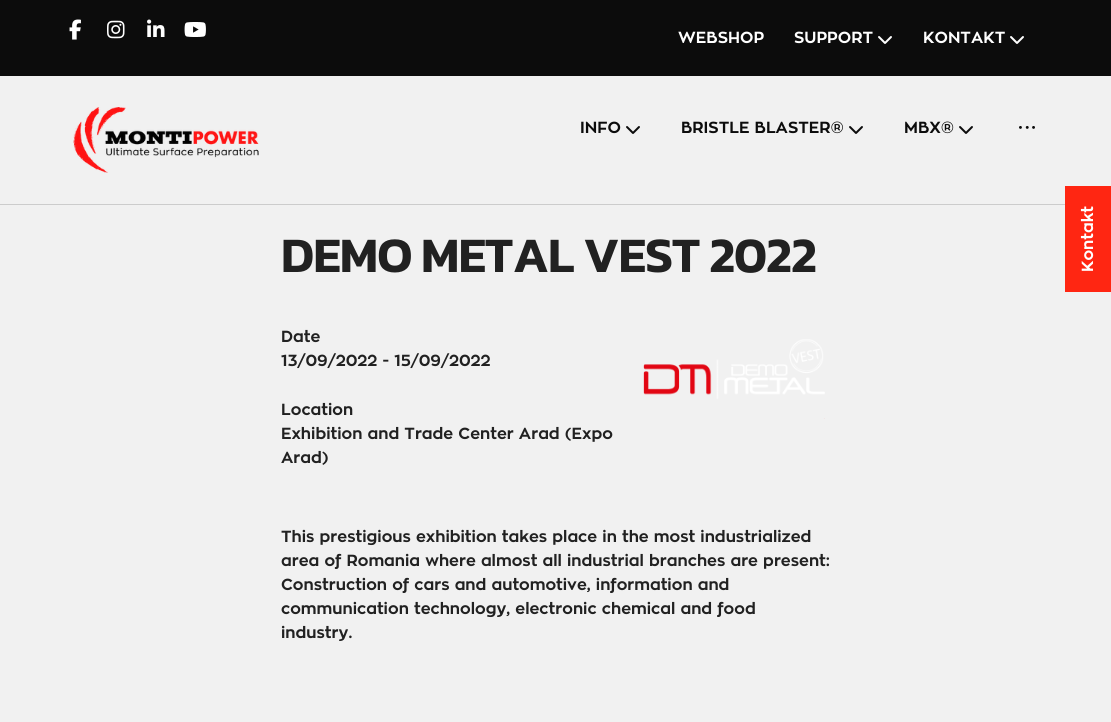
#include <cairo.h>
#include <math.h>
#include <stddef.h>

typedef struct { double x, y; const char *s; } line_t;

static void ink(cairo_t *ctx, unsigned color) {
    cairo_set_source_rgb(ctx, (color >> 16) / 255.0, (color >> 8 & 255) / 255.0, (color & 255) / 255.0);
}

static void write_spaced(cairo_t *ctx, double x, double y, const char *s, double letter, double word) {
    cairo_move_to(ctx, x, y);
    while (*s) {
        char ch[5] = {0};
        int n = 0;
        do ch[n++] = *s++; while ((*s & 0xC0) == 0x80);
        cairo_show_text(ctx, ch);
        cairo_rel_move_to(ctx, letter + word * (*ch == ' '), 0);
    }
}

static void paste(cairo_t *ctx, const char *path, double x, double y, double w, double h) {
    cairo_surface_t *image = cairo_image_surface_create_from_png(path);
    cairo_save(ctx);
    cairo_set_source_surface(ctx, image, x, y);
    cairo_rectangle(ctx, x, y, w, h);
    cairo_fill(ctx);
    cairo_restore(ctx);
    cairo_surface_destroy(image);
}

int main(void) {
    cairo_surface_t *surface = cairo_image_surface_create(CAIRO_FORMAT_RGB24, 1111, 722);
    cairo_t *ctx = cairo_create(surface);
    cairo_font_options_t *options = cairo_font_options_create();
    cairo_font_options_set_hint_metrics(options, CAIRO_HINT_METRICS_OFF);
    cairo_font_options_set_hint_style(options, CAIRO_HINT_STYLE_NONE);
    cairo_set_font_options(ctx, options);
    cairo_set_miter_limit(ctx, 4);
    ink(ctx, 0xF1F1F1);
    cairo_paint(ctx);
    ink(ctx, 0x0C0C0C);
    cairo_rectangle(ctx, 0, 0, 1111, 76);
    cairo_fill(ctx);
    paste(ctx, "media/1.png", 69, 19, 12, 21);
    paste(ctx, "media/2.png", 107, 20, 18, 19);
    paste(ctx, "media/3.png", 147, 19, 18, 18);
    paste(ctx, "media/4.png", 184, 22, 22, 15);
    cairo_select_font_face(ctx, "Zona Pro", CAIRO_FONT_SLANT_NORMAL, CAIRO_FONT_WEIGHT_BOLD);
    cairo_set_font_size(ctx, 16);
    ink(ctx, 0xFFFFFF);
    cairo_move_to(ctx, 678, 43);
    cairo_show_text(ctx, "WEBSHOP");
    cairo_move_to(ctx, 794, 43);
    cairo_show_text(ctx, "SUPPORT");
    paste(ctx, "media/5.png", 878, 36, 14, 8);
    cairo_move_to(ctx, 923, 43);
    cairo_show_text(ctx, "KONTAKT");
    paste(ctx, "media/5.png", 1010, 36, 14, 8);
    ink(ctx, 0xCCCCCC);
    cairo_rectangle(ctx, 0, 204, 1065, 1);
    cairo_fill(ctx);
    paste(ctx, "media/6.png", 73, 107, 186, 66);
    ink(ctx, 0x0C0C0C);
    cairo_move_to(ctx, 580, 133);
    cairo_show_text(ctx, "INFO");
    paste(ctx, "media/7.png", 626, 126, 14, 8);
    cairo_move_to(ctx, 681, 133);
    cairo_show_text(ctx, "BRISTLE BLASTER®");
    paste(ctx, "media/7.png", 849, 126, 14, 8);
    cairo_move_to(ctx, 904, 133);
    cairo_show_text(ctx, "MBX®");
    paste(ctx, "media/7.png", 959, 126, 14, 8);
    paste(ctx, "media/8.png", 1019, 126, 16, 3);
    cairo_select_font_face(ctx, "Kanit SemiBold", CAIRO_FONT_SLANT_NORMAL, CAIRO_FONT_WEIGHT_NORMAL);
    cairo_set_font_size(ctx, 50);
    ink(ctx, 0x212121);
    write_spaced(ctx, 281, 272, "DEMO METAL VEST 2022", -1, 0);
    cairo_select_font_face(ctx, "Zona Pro", CAIRO_FONT_SLANT_NORMAL, CAIRO_FONT_WEIGHT_BOLD);
    cairo_set_font_size(ctx, 16);
    {
        static const line_t items[] = {
            {281, 342, "Date"},
            {281, 366, "13/09/2022 - 15/09/2022"},
            {281, 415, "Location"},
            {281, 439, "Exhibition and Trade Center Arad (Expo"},
            {281, 463, "Arad)"},
        };
        for (size_t i = 0; i < sizeof items / sizeof *items; i++) {
            cairo_move_to(ctx, items[i].x, items[i].y);
            cairo_show_text(ctx, items[i].s);
        }
    }
    paste(ctx, "media/9.png", 643, 339, 182, 80);
    {
        static const line_t items[] = {
            {281, 542, "This prestigious exhibition takes place in the most industrialized"},
            {281, 566, "area of Romania where almost all industrial branches are present:"},
            {281, 590, "Construction of cars and automotive, information and"},
            {281, 614, "communication technology, electronic chemical and food"},
            {281, 638, "industry."},
        };
        for (size_t i = 0; i < sizeof items / sizeof *items; i++) {
            cairo_move_to(ctx, items[i].x, items[i].y);
            cairo_show_text(ctx, items[i].s);
        }
    }
    ink(ctx, 0xFF2612);
    cairo_rectangle(ctx, 1065, 186, 46, 106);
    cairo_fill(ctx);
    ink(ctx, 0xFFFFFF);
    cairo_save(ctx);
    cairo_translate(ctx, 1093, 272);
    cairo_rotate(ctx, -90 * M_PI / 180);
    cairo_move_to(ctx, 0, 0);
    cairo_show_text(ctx, "Kontakt");
    cairo_restore(ctx);
    cairo_surface_write_to_png(surface, "image.png");
    cairo_font_options_destroy(options);
    cairo_destroy(ctx);
    cairo_surface_destroy(surface);
    return 0;
}
